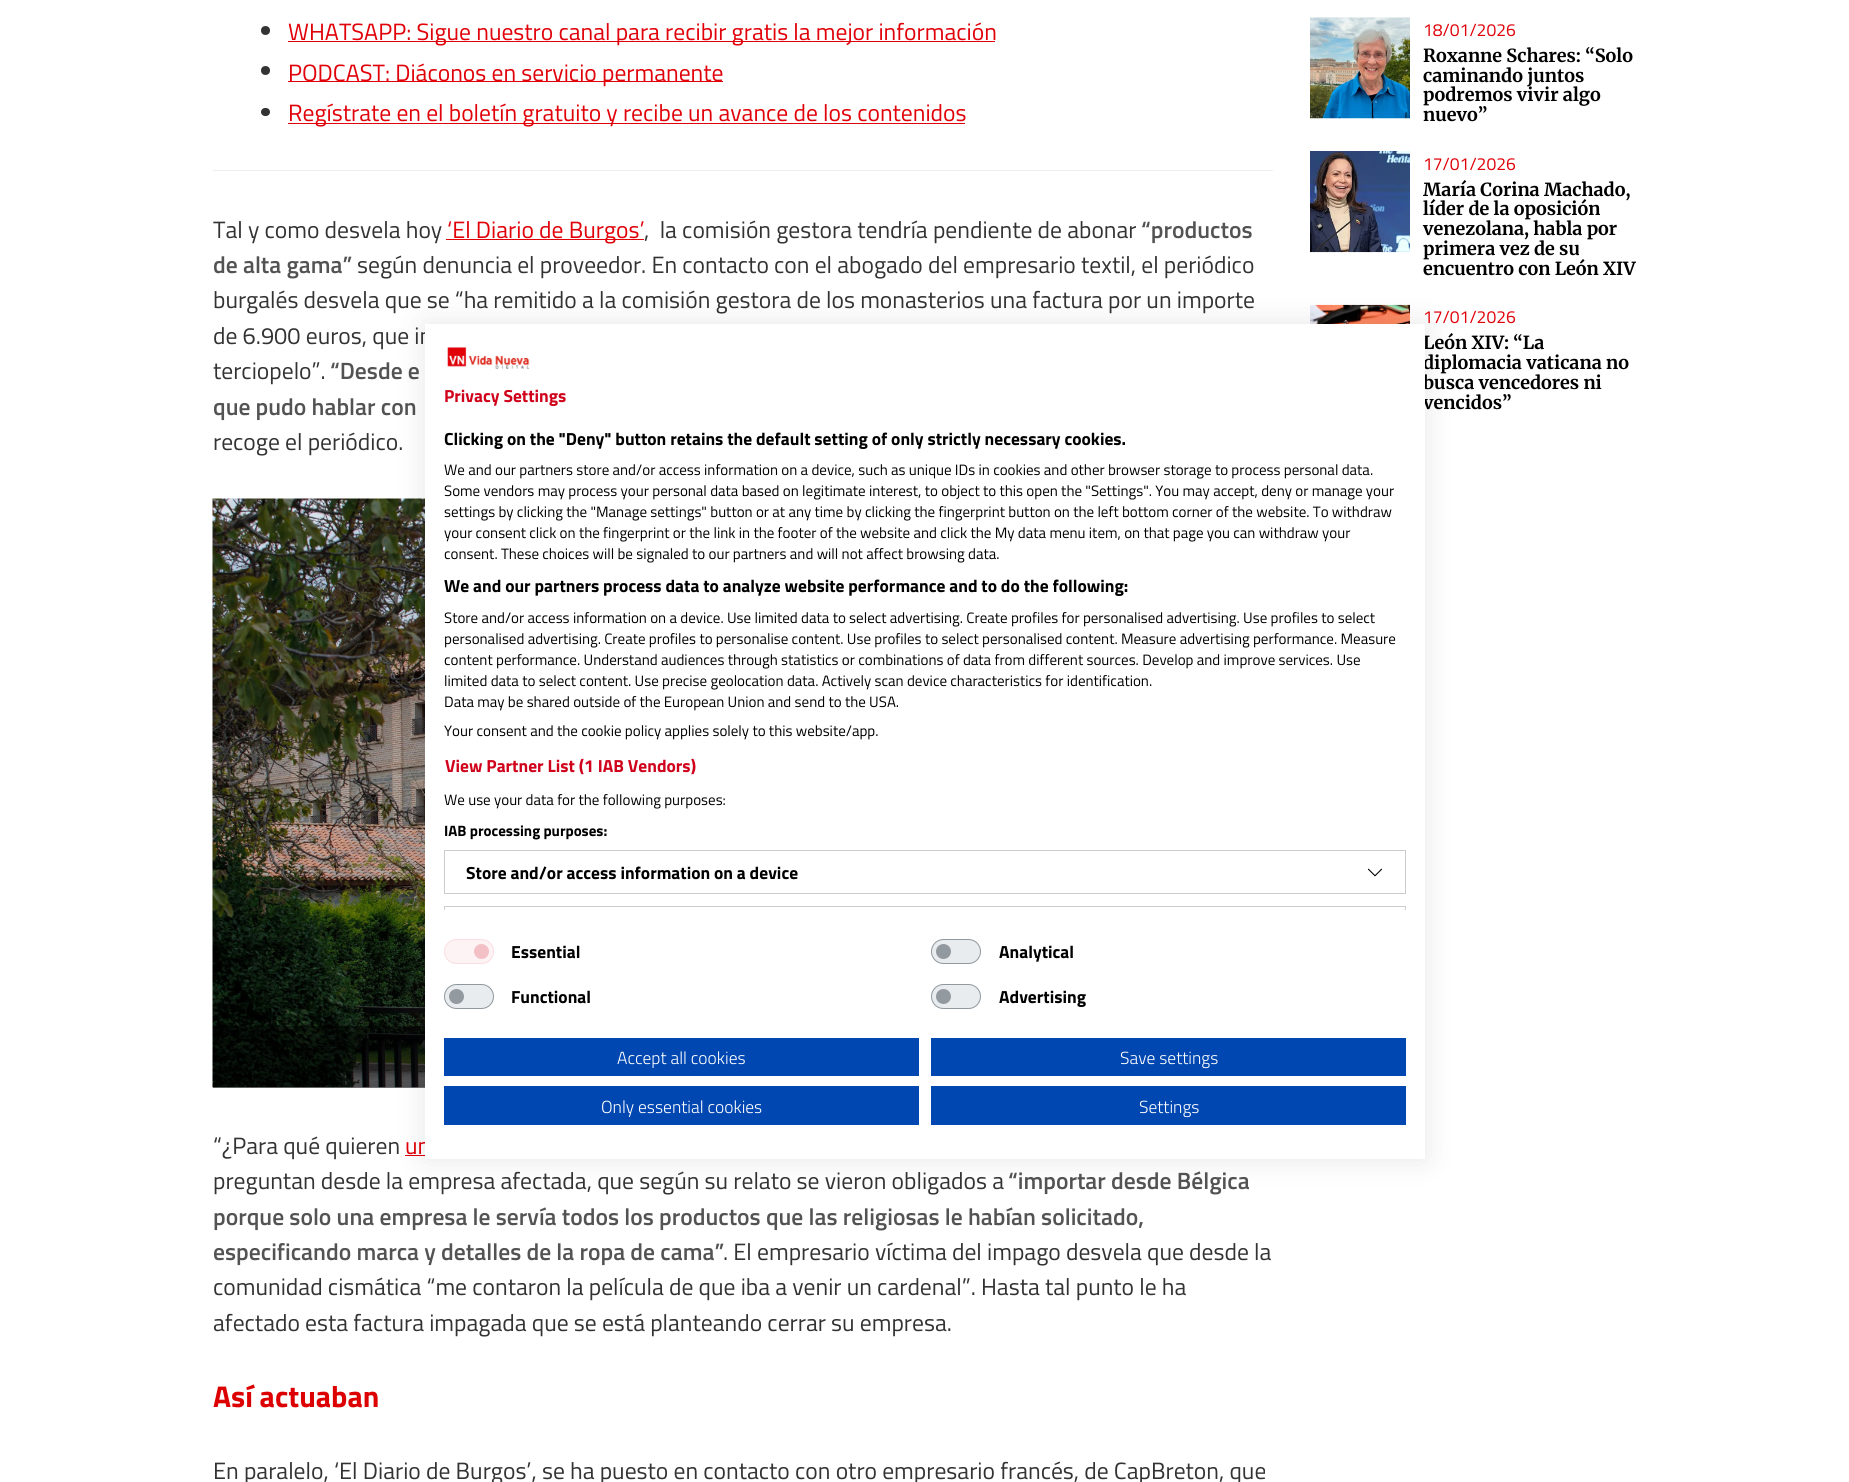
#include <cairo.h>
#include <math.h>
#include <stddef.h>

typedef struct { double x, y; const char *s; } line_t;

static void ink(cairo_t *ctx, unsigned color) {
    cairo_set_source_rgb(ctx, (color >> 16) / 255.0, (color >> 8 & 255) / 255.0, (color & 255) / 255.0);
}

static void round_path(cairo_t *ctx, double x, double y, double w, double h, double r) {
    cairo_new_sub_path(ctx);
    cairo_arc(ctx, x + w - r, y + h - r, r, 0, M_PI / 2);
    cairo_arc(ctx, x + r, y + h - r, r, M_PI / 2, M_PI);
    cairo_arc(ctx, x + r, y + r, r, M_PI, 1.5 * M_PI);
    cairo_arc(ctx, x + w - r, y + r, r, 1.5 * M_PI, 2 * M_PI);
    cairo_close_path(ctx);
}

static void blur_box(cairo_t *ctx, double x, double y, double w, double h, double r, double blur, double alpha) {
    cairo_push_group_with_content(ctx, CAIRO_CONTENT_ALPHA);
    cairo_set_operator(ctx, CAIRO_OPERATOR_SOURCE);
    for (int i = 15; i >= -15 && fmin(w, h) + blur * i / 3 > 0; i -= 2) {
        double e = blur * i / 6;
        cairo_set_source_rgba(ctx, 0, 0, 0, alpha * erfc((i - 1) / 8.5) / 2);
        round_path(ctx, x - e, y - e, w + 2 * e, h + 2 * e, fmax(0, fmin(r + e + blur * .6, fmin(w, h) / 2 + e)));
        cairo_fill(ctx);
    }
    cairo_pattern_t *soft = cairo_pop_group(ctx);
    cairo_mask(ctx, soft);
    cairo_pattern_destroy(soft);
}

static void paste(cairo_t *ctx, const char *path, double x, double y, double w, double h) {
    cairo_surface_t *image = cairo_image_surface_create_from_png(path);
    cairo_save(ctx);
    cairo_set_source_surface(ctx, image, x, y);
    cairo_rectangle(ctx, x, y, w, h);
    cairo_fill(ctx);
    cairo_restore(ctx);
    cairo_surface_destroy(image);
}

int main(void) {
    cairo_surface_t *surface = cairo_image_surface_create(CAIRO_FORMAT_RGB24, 1849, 1482);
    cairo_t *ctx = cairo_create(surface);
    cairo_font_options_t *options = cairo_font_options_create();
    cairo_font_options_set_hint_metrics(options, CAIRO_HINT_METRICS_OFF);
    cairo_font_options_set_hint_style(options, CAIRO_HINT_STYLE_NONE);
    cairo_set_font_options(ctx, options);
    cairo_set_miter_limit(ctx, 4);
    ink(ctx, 0xFFFFFF);
    cairo_paint(ctx);
    ink(ctx, 0x333333);
    cairo_arc(ctx, 265.5, 30.5, 4.5, 0, 2 * M_PI);
    cairo_fill(ctx);
    ink(ctx, 0xE00109);
    cairo_rectangle(ctx, 288, 41, 707, 1);
    cairo_fill(ctx);
    cairo_select_font_face(ctx, "Titillium Web", CAIRO_FONT_SLANT_NORMAL, CAIRO_FONT_WEIGHT_NORMAL);
    cairo_set_font_size(ctx, 23.6);
    cairo_move_to(ctx, 288, 40);
    cairo_show_text(ctx, "WHATSAPP: Sigue nuestro canal para recibir gratis la mejor información");
    ink(ctx, 0x333333);
    cairo_new_path(ctx);
    cairo_arc(ctx, 265.5, 70.5, 4.5, 0, 2 * M_PI);
    cairo_fill(ctx);
    ink(ctx, 0xE00109);
    cairo_rectangle(ctx, 288, 81, 435, 1);
    cairo_fill(ctx);
    cairo_move_to(ctx, 288, 81);
    cairo_show_text(ctx, "PODCAST: Diáconos en servicio permanente");
    ink(ctx, 0x333333);
    round_path(ctx, 261, 108, 9, 8, 4);
    cairo_fill(ctx);
    ink(ctx, 0xE00109);
    cairo_rectangle(ctx, 288, 123, 677, 1);
    cairo_fill(ctx);
    cairo_move_to(ctx, 288, 121);
    cairo_show_text(ctx, "Regístrate en el boletín gratuito y recibe un avance de los contenidos");
    ink(ctx, 0xEEEEEE);
    cairo_rectangle(ctx, 213, 170, 1060, 1);
    cairo_fill(ctx);
    ink(ctx, 0x333333);
    cairo_move_to(ctx, 213, 238);
    cairo_show_text(ctx, "Tal y como desvela hoy");
    ink(ctx, 0xE00109);
    cairo_rectangle(ctx, 446, 239, 198, 1);
    cairo_fill(ctx);
    cairo_move_to(ctx, 447, 238);
    cairo_show_text(ctx, "‘El Diario de Burgos’");
    ink(ctx, 0x333333);
    cairo_move_to(ctx, 644, 238);
    cairo_show_text(ctx, ",  la comisión gestora tendría pendiente de abonar");
    cairo_select_font_face(ctx, "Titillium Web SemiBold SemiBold", CAIRO_FONT_SLANT_NORMAL, CAIRO_FONT_WEIGHT_NORMAL);
    ink(ctx, 0x535353);
    cairo_move_to(ctx, 1141, 238);
    cairo_show_text(ctx, "“productos");
    cairo_move_to(ctx, 213, 273);
    cairo_show_text(ctx, "de alta gama”");
    cairo_select_font_face(ctx, "Titillium Web", CAIRO_FONT_SLANT_NORMAL, CAIRO_FONT_WEIGHT_NORMAL);
    ink(ctx, 0x333333);
    {
        static const line_t items[] = {
            {357, 273, "según denuncia el proveedor. En contacto con el abogado del empresario textil, el periódico"},
            {213, 308, "burgalés desvela que se “ha remitido a la comisión gestora de los monasterios una factura por un importe"},
            {213, 344, "de 6.900 euros, que in"},
            {213, 379, "terciopelo”."},
        };
        for (size_t i = 0; i < sizeof items / sizeof *items; i++) {
            cairo_move_to(ctx, items[i].x, items[i].y);
            cairo_show_text(ctx, items[i].s);
        }
    }
    cairo_select_font_face(ctx, "Titillium Web SemiBold SemiBold", CAIRO_FONT_SLANT_NORMAL, CAIRO_FONT_WEIGHT_NORMAL);
    ink(ctx, 0x535353);
    cairo_move_to(ctx, 330, 379);
    cairo_show_text(ctx, "“Desde e");
    cairo_move_to(ctx, 213, 415);
    cairo_show_text(ctx, "que pudo hablar con");
    cairo_select_font_face(ctx, "Titillium Web", CAIRO_FONT_SLANT_NORMAL, CAIRO_FONT_WEIGHT_NORMAL);
    ink(ctx, 0x333333);
    cairo_move_to(ctx, 213, 450);
    cairo_show_text(ctx, "recoge el periódico.");
    paste(ctx, "media/1.png", 212, 498, 213, 590);
    cairo_set_source_rgba(ctx, 0, 0, 0, 0.5);
    cairo_rectangle(ctx, 213, 1026, 212, 62);
    cairo_fill(ctx);
    ink(ctx, 0x333333);
    cairo_move_to(ctx, 213, 1154);
    cairo_show_text(ctx, "“¿Para qué quieren");
    ink(ctx, 0xE00109);
    cairo_move_to(ctx, 405, 1154);
    cairo_show_text(ctx, "un");
    cairo_rectangle(ctx, 405, 1155, 20, 1);
    cairo_fill(ctx);
    ink(ctx, 0x333333);
    cairo_move_to(ctx, 213, 1189);
    cairo_show_text(ctx, "preguntan desde la empresa afectada, que según su relato se vieron obligados a");
    cairo_select_font_face(ctx, "Titillium Web SemiBold SemiBold", CAIRO_FONT_SLANT_NORMAL, CAIRO_FONT_WEIGHT_NORMAL);
    ink(ctx, 0x535353);
    {
        static const line_t items[] = {
            {1008, 1189, "“importar desde Bélgica"},
            {213, 1225, "porque solo una empresa le servía todos los productos que las religiosas le habían solicitado,"},
            {213, 1260, "especificando marca y detalles de la ropa de cama”"},
        };
        for (size_t i = 0; i < sizeof items / sizeof *items; i++) {
            cairo_move_to(ctx, items[i].x, items[i].y);
            cairo_show_text(ctx, items[i].s);
        }
    }
    cairo_select_font_face(ctx, "Titillium Web", CAIRO_FONT_SLANT_NORMAL, CAIRO_FONT_WEIGHT_NORMAL);
    ink(ctx, 0x333333);
    {
        static const line_t items[] = {
            {723, 1260, ". El empresario víctima del impago desvela que desde la"},
            {213, 1295, "comunidad cismática “me contaron la película de que iba a venir un cardenal”. Hasta tal punto le ha"},
            {213, 1331, "afectado esta factura impagada que se está planteando cerrar su empresa."},
        };
        for (size_t i = 0; i < sizeof items / sizeof *items; i++) {
            cairo_move_to(ctx, items[i].x, items[i].y);
            cairo_show_text(ctx, items[i].s);
        }
    }
    cairo_select_font_face(ctx, "Titillium Web", CAIRO_FONT_SLANT_NORMAL, CAIRO_FONT_WEIGHT_BOLD);
    cairo_set_font_size(ctx, 30);
    ink(ctx, 0xDD0000);
    cairo_move_to(ctx, 213, 1407);
    cairo_show_text(ctx, "Así actuaban");
    cairo_select_font_face(ctx, "Titillium Web", CAIRO_FONT_SLANT_NORMAL, CAIRO_FONT_WEIGHT_NORMAL);
    cairo_set_font_size(ctx, 23.6);
    ink(ctx, 0x333333);
    cairo_move_to(ctx, 213, 1479);
    cairo_show_text(ctx, "En paralelo, ‘El Diario de Burgos’, se ha puesto en contacto con otro empresario francés, de CapBreton, que");
    paste(ctx, "media/2.png", 1310, 17, 100, 102);
    cairo_set_font_size(ctx, 17.5);
    ink(ctx, 0xE00109);
    cairo_move_to(ctx, 1423, 36);
    cairo_show_text(ctx, "18/01/2026");
    cairo_select_font_face(ctx, "Merriweather", CAIRO_FONT_SLANT_NORMAL, CAIRO_FONT_WEIGHT_BOLD);
    cairo_set_font_size(ctx, 18);
    ink(ctx, 0x000000);
    {
        static const line_t items[] = {
            {1423, 62, "Roxanne Schares: “Solo"},
            {1423, 82, "caminando juntos"},
            {1423, 101, "podremos vivir algo"},
            {1423, 121, "nuevo”"},
        };
        for (size_t i = 0; i < sizeof items / sizeof *items; i++) {
            cairo_move_to(ctx, items[i].x, items[i].y);
            cairo_show_text(ctx, items[i].s);
        }
    }
    paste(ctx, "media/3.png", 1310, 151, 100, 102);
    cairo_select_font_face(ctx, "Titillium Web", CAIRO_FONT_SLANT_NORMAL, CAIRO_FONT_WEIGHT_NORMAL);
    cairo_set_font_size(ctx, 17.5);
    ink(ctx, 0xE00109);
    cairo_move_to(ctx, 1423, 170);
    cairo_show_text(ctx, "17/01/2026");
    cairo_select_font_face(ctx, "Merriweather", CAIRO_FONT_SLANT_NORMAL, CAIRO_FONT_WEIGHT_BOLD);
    cairo_set_font_size(ctx, 18);
    ink(ctx, 0x000000);
    {
        static const line_t items[] = {
            {1423, 196, "María Corina Machado,"},
            {1423, 215, "líder de la oposición"},
            {1423, 235, "venezolana, habla por"},
            {1423, 255, "primera vez de su"},
            {1423, 275, "encuentro con León XIV"},
        };
        for (size_t i = 0; i < sizeof items / sizeof *items; i++) {
            cairo_move_to(ctx, items[i].x, items[i].y);
            cairo_show_text(ctx, items[i].s);
        }
    }
    paste(ctx, "media/4.png", 1310, 304, 100, 20);
    cairo_select_font_face(ctx, "Titillium Web", CAIRO_FONT_SLANT_NORMAL, CAIRO_FONT_WEIGHT_NORMAL);
    cairo_set_font_size(ctx, 17.5);
    ink(ctx, 0xE00109);
    cairo_move_to(ctx, 1423, 323);
    cairo_show_text(ctx, "17/01/2026");
    cairo_select_font_face(ctx, "Merriweather", CAIRO_FONT_SLANT_NORMAL, CAIRO_FONT_WEIGHT_BOLD);
    cairo_set_font_size(ctx, 18);
    ink(ctx, 0x000000);
    {
        static const line_t items[] = {
            {1423, 349, "León XIV: “La"},
            {1423, 369, "diplomacia vaticana no"},
            {1423, 389, "busca vencedores ni"},
            {1423, 409, "vencidos”"},
        };
        for (size_t i = 0; i < sizeof items / sizeof *items; i++) {
            cairo_move_to(ctx, items[i].x, items[i].y);
            cairo_show_text(ctx, items[i].s);
        }
    }
    ink(ctx, 0x000000);
    blur_box(ctx, 425, 324, 1000, 835, 0, 15, 0.1);
    ink(ctx, 0xFFFFFF);
    cairo_rectangle(ctx, 425, 324, 1000, 835);
    cairo_fill(ctx);
    paste(ctx, "media/5.png", 447, 347, 83, 22);
    cairo_select_font_face(ctx, "Titillium Web", CAIRO_FONT_SLANT_NORMAL, CAIRO_FONT_WEIGHT_BOLD);
    cairo_set_font_size(ctx, 17.5);
    ink(ctx, 0xD0021B);
    cairo_move_to(ctx, 444, 402);
    cairo_show_text(ctx, "Privacy Settings");
    ink(ctx, 0x000000);
    cairo_move_to(ctx, 444, 445);
    cairo_show_text(ctx, "Clicking on the \"Deny\" button retains the default setting of only strictly necessary cookies.");
    cairo_select_font_face(ctx, "Titillium Web", CAIRO_FONT_SLANT_NORMAL, CAIRO_FONT_WEIGHT_NORMAL);
    cairo_set_font_size(ctx, 15);
    {
        static const line_t items[] = {
            {444, 475, "We and our partners store and/or access information on a device, such as unique IDs in cookies and other browser storage to process personal data."},
            {444, 496, "Some vendors may process your personal data based on legitimate interest, to object to this open the \"Settings\". You may accept, deny or manage your"},
            {444, 517, "settings by clicking the \"Manage settings\" button or at any time by clicking the fingerprint button on the left bottom corner of the website. To withdraw"},
            {444, 538, "your consent click on the fingerprint or the link in the footer of the website and click the My data menu item, on that page you can withdraw your"},
            {444, 559, "consent. These choices will be signaled to our partners and will not affect browsing data."},
        };
        for (size_t i = 0; i < sizeof items / sizeof *items; i++) {
            cairo_move_to(ctx, items[i].x, items[i].y);
            cairo_show_text(ctx, items[i].s);
        }
    }
    cairo_select_font_face(ctx, "Titillium Web", CAIRO_FONT_SLANT_NORMAL, CAIRO_FONT_WEIGHT_BOLD);
    cairo_set_font_size(ctx, 17.5);
    cairo_move_to(ctx, 444, 592);
    cairo_show_text(ctx, "We and our partners process data to analyze website performance and to do the following:");
    cairo_select_font_face(ctx, "Titillium Web", CAIRO_FONT_SLANT_NORMAL, CAIRO_FONT_WEIGHT_NORMAL);
    cairo_set_font_size(ctx, 15);
    {
        static const line_t items[] = {
            {444, 623, "Store and/or access information on a device. Use limited data to select advertising. Create profiles for personalised advertising. Use profiles to select"},
            {444, 644, "personalised advertising. Create profiles to personalise content. Use profiles to select personalised content. Measure advertising performance. Measure"},
            {444, 665, "content performance. Understand audiences through statistics or combinations of data from different sources. Develop and improve services. Use"},
            {444, 686, "limited data to select content. Use precise geolocation data. Actively scan device characteristics for identification."},
            {444, 707, "Data may be shared outside of the European Union and send to the USA."},
            {444, 736, "Your consent and the cookie policy applies solely to this website/app."},
        };
        for (size_t i = 0; i < sizeof items / sizeof *items; i++) {
            cairo_move_to(ctx, items[i].x, items[i].y);
            cairo_show_text(ctx, items[i].s);
        }
    }
    cairo_select_font_face(ctx, "Titillium Web", CAIRO_FONT_SLANT_NORMAL, CAIRO_FONT_WEIGHT_BOLD);
    cairo_set_font_size(ctx, 17.5);
    ink(ctx, 0xD0021B);
    cairo_move_to(ctx, 445, 772);
    cairo_show_text(ctx, "View Partner List (1 IAB Vendors)");
    cairo_select_font_face(ctx, "Titillium Web", CAIRO_FONT_SLANT_NORMAL, CAIRO_FONT_WEIGHT_NORMAL);
    cairo_set_font_size(ctx, 15);
    ink(ctx, 0x000000);
    cairo_move_to(ctx, 444, 805);
    cairo_show_text(ctx, "We use your data for the following purposes:");
    cairo_select_font_face(ctx, "Titillium Web", CAIRO_FONT_SLANT_NORMAL, CAIRO_FONT_WEIGHT_BOLD);
    cairo_move_to(ctx, 444, 836);
    cairo_show_text(ctx, "IAB processing purposes:");
    cairo_rectangle(ctx, 444.5, 850.5, 961, 43);
    ink(ctx, 0xCCCCCC);
    cairo_set_line_width(ctx, 1);
    cairo_stroke(ctx);
    cairo_set_font_size(ctx, 17.5);
    ink(ctx, 0x000000);
    cairo_move_to(ctx, 466, 879);
    cairo_show_text(ctx, "Store and/or access information on a device");
    paste(ctx, "media/6.png", 1367, 868, 16, 9);
    ink(ctx, 0xFDF2F4);
    round_path(ctx, 444, 939, 50, 25, 12.5);
    cairo_fill(ctx);
    ink(ctx, 0xF3C0C6);
    cairo_arc(ctx, 481.5, 951.5, 7.5, 0, 2 * M_PI);
    cairo_fill(ctx);
    round_path(ctx, 444.5, 939.5, 49, 24, 12);
    ink(ctx, 0xF9DFE3);
    cairo_stroke(ctx);
    ink(ctx, 0x000000);
    cairo_move_to(ctx, 511, 958);
    cairo_show_text(ctx, "Essential");
    ink(ctx, 0xE9ECEF);
    round_path(ctx, 931, 939, 50, 25, 12.5);
    cairo_fill(ctx);
    ink(ctx, 0x92999F);
    cairo_arc(ctx, 943.5, 951.5, 7.5, 0, 2 * M_PI);
    cairo_fill(ctx);
    round_path(ctx, 931.5, 939.5, 49, 24, 12);
    cairo_set_source_rgba(ctx, 0.424, 0.459, 0.49, 0.7);
    cairo_stroke(ctx);
    ink(ctx, 0x000000);
    cairo_move_to(ctx, 999, 958);
    cairo_show_text(ctx, "Analytical");
    cairo_save(ctx);
    cairo_rectangle(ctx, 425, 348, 1000, 562);
    cairo_clip(ctx);
    cairo_rectangle(ctx, 444.5, 906.5, 961, 43);
    ink(ctx, 0xCCCCCC);
    cairo_stroke(ctx);
    cairo_restore(ctx);
    ink(ctx, 0xE9ECEF);
    round_path(ctx, 444, 984, 50, 25, 12.5);
    cairo_fill(ctx);
    ink(ctx, 0x92999F);
    cairo_arc(ctx, 456.5, 996.5, 7.5, 0, 2 * M_PI);
    cairo_fill(ctx);
    round_path(ctx, 444.5, 984.5, 49, 24, 12);
    cairo_set_source_rgba(ctx, 0.424, 0.459, 0.49, 0.7);
    cairo_stroke(ctx);
    ink(ctx, 0x000000);
    cairo_move_to(ctx, 511, 1003);
    cairo_show_text(ctx, "Functional");
    ink(ctx, 0xE9ECEF);
    round_path(ctx, 931, 984, 50, 25, 12.5);
    cairo_fill(ctx);
    ink(ctx, 0x92999F);
    cairo_arc(ctx, 943.5, 996.5, 7.5, 0, 2 * M_PI);
    cairo_fill(ctx);
    round_path(ctx, 931.5, 984.5, 49, 24, 12);
    cairo_set_source_rgba(ctx, 0.424, 0.459, 0.49, 0.7);
    cairo_stroke(ctx);
    ink(ctx, 0x000000);
    cairo_move_to(ctx, 999, 1003);
    cairo_show_text(ctx, "Advertising");
    ink(ctx, 0x0047B2);
    cairo_rectangle(ctx, 444, 1038, 475, 38);
    cairo_fill(ctx);
    cairo_select_font_face(ctx, "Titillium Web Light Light", CAIRO_FONT_SLANT_NORMAL, CAIRO_FONT_WEIGHT_NORMAL);
    ink(ctx, 0xFFFFFF);
    cairo_move_to(ctx, 617, 1064);
    cairo_show_text(ctx, "Accept all cookies");
    ink(ctx, 0x0047B2);
    cairo_rectangle(ctx, 931, 1038, 475, 38);
    cairo_fill(ctx);
    ink(ctx, 0xFFFFFF);
    cairo_move_to(ctx, 1120, 1064);
    cairo_show_text(ctx, "Save settings");
    ink(ctx, 0x0047B2);
    cairo_rectangle(ctx, 444, 1086, 475, 39);
    cairo_fill(ctx);
    ink(ctx, 0xFFFFFF);
    cairo_move_to(ctx, 601, 1113);
    cairo_show_text(ctx, "Only essential cookies");
    ink(ctx, 0x0047B2);
    cairo_rectangle(ctx, 931, 1086, 475, 39);
    cairo_fill(ctx);
    ink(ctx, 0xFFFFFF);
    cairo_move_to(ctx, 1139, 1113);
    cairo_show_text(ctx, "Settings");
    cairo_surface_write_to_png(surface, "image.png");
    cairo_font_options_destroy(options);
    cairo_destroy(ctx);
    cairo_surface_destroy(surface);
    return 0;
}
